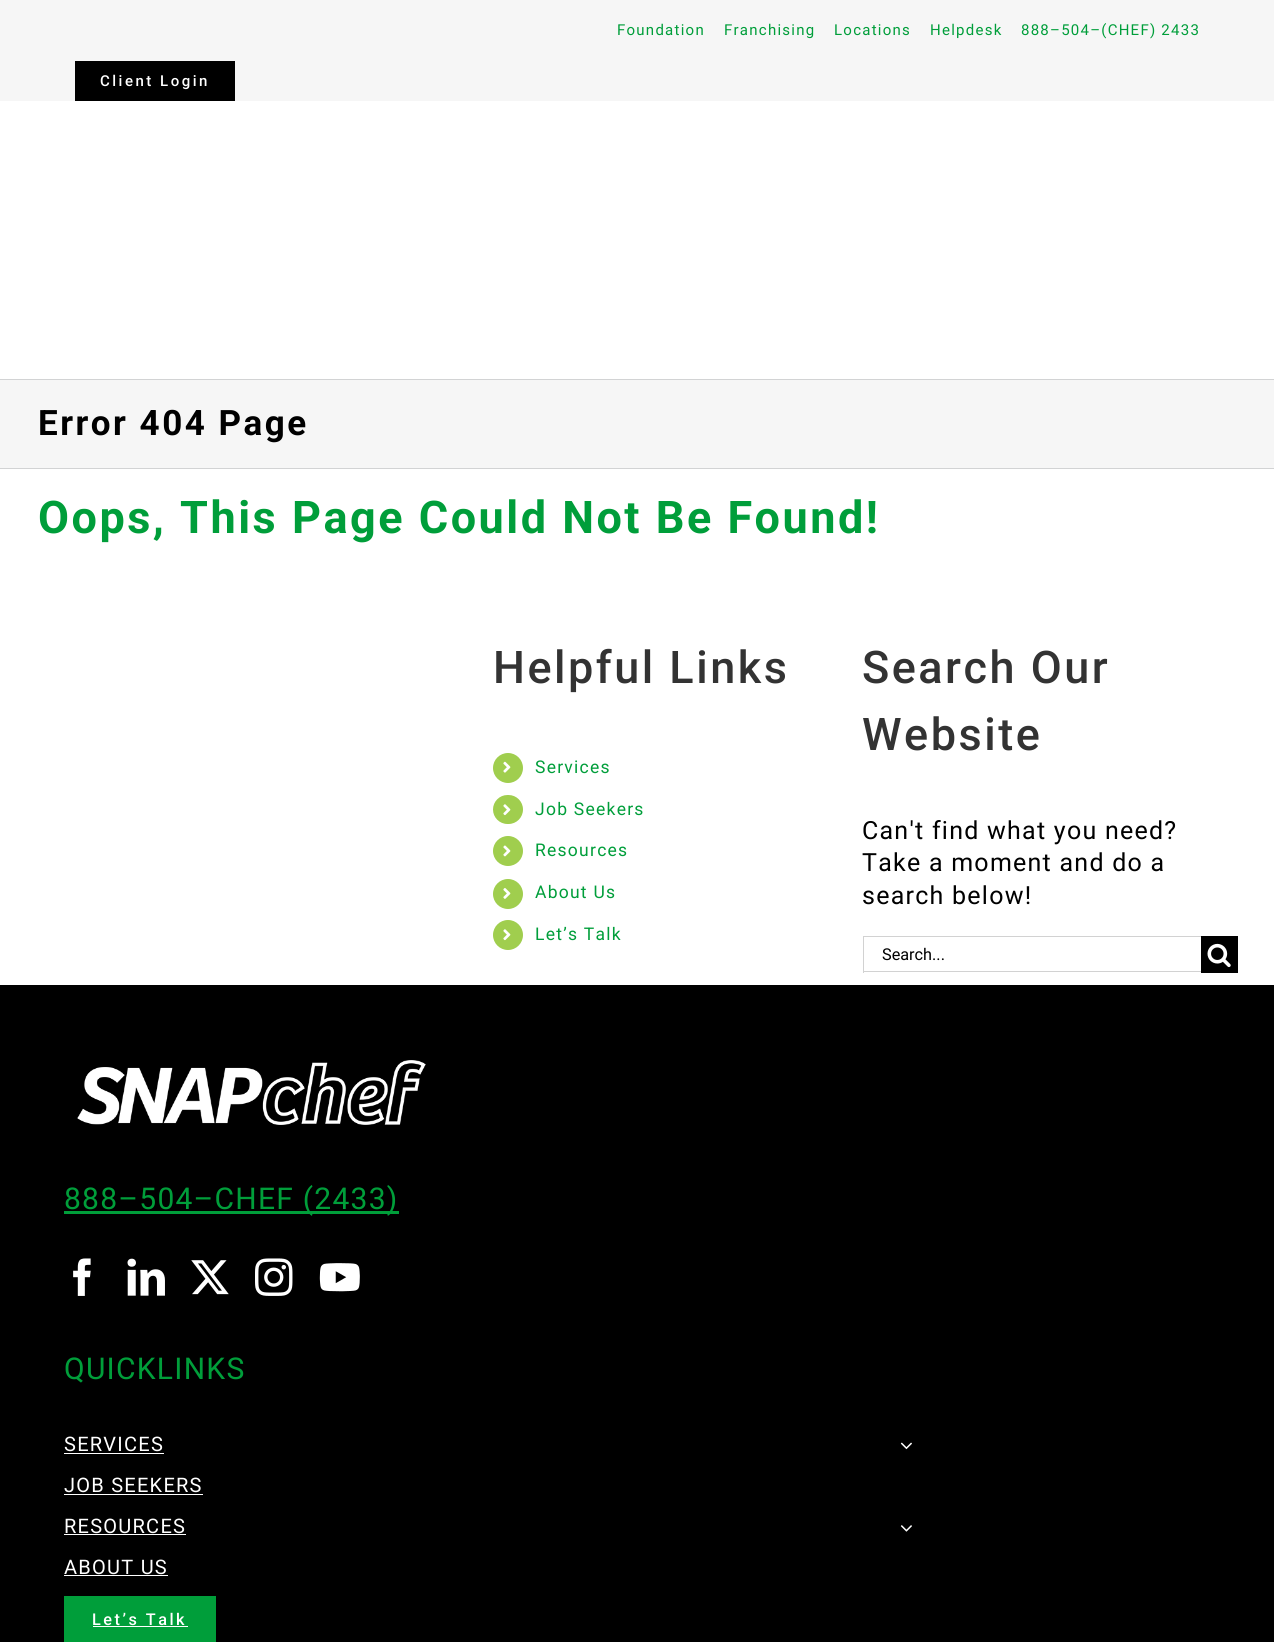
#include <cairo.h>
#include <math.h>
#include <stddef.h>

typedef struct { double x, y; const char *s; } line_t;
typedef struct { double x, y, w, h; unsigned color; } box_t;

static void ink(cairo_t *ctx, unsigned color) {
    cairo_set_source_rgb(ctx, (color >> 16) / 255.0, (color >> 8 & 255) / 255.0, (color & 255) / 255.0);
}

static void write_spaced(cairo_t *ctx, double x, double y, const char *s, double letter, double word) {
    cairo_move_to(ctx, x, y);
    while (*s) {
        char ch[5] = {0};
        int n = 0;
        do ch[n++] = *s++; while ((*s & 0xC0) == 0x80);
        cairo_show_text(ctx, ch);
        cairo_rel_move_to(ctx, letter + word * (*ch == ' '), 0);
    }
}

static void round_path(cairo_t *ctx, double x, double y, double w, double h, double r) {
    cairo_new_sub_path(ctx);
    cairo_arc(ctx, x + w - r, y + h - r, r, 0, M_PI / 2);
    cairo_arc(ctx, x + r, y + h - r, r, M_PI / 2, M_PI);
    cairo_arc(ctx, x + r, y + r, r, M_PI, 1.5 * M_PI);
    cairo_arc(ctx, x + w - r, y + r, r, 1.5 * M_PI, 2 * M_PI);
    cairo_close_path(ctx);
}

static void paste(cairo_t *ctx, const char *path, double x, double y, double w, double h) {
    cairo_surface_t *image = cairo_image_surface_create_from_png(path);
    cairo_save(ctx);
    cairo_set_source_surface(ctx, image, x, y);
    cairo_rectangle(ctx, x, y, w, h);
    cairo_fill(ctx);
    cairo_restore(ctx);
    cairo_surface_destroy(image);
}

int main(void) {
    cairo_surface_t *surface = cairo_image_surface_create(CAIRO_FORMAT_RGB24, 1274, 1642);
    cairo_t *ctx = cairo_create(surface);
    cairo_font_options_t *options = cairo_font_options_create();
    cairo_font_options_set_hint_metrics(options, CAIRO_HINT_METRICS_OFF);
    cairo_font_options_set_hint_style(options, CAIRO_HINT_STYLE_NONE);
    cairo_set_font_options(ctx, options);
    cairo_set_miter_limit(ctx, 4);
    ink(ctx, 0xFFFFFF);
    cairo_paint(ctx);
    ink(ctx, 0xF6F6F6);
    cairo_rectangle(ctx, 0, 0, 1274, 101);
    cairo_fill(ctx);
    cairo_select_font_face(ctx, "Roboto", CAIRO_FONT_SLANT_NORMAL, CAIRO_FONT_WEIGHT_NORMAL);
    cairo_set_font_size(ctx, 15);
    ink(ctx, 0x009E3A);
    {
        static const line_t items[] = {
            {617, 35, "Foundation"},
            {724, 35, "Franchising"},
            {834, 35, "Locations"},
            {930, 35, "Helpdesk"},
            {1021, 35, "888–504–(CHEF) 2433"},
        };
        for (size_t i = 0; i < sizeof items / sizeof *items; i++) {
            write_spaced(ctx, items[i].x, items[i].y, items[i].s, 1.25, 0);
        }
    }
    ink(ctx, 0x000000);
    cairo_rectangle(ctx, 75, 61, 160, 40);
    cairo_fill(ctx);
    cairo_select_font_face(ctx, "Roboto Medium", CAIRO_FONT_SLANT_NORMAL, CAIRO_FONT_WEIGHT_NORMAL);
    ink(ctx, 0xFFFFFF);
    write_spaced(ctx, 100, 86, "Client Login", 2.5, 0);
    {
        static const box_t items[] = {
            {0, 380, 1274, 88, 0xF6F6F6},
            {0, 379, 1274, 1, 0xD2D3D4},
            {0, 468, 1274, 1, 0xD2D3D4},
        };
        for (size_t i = 0; i < sizeof items / sizeof *items; i++) {
            ink(ctx, items[i].color);
            cairo_rectangle(ctx, items[i].x, items[i].y, items[i].w, items[i].h);
            cairo_fill(ctx);
        }
    }
    cairo_select_font_face(ctx, "Roboto", CAIRO_FONT_SLANT_NORMAL, CAIRO_FONT_WEIGHT_BOLD);
    cairo_set_font_size(ctx, 35);
    ink(ctx, 0x000000);
    write_spaced(ctx, 38, 435, "Error 404 Page", 2.5, 0);
    cairo_set_font_size(ctx, 45);
    ink(ctx, 0x009E3A);
    write_spaced(ctx, 38, 533, "Oops, This Page Could Not Be Found!", 2.5, 0);
    cairo_select_font_face(ctx, "Roboto Medium", CAIRO_FONT_SLANT_NORMAL, CAIRO_FONT_WEIGHT_NORMAL);
    ink(ctx, 0x333333);
    write_spaced(ctx, 493, 683, "Helpful Links", 2.5, 0);
    ink(ctx, 0xA0CE4E);
    cairo_new_path(ctx);
    cairo_arc(ctx, 508, 768, 15, 0, 2 * M_PI);
    cairo_fill(ctx);
    paste(ctx, "media/1.png", 503, 761, 8, 12);
    cairo_select_font_face(ctx, "Roboto", CAIRO_FONT_SLANT_NORMAL, CAIRO_FONT_WEIGHT_NORMAL);
    cairo_set_font_size(ctx, 17.5);
    ink(ctx, 0x009E3A);
    write_spaced(ctx, 535, 773, "Services", 1.25, 0);
    ink(ctx, 0xA0CE4E);
    round_path(ctx, 493, 795, 30, 29, 14.5);
    cairo_fill(ctx);
    paste(ctx, "media/2.png", 503, 804, 8, 12);
    ink(ctx, 0x009E3A);
    write_spaced(ctx, 535, 815, "Job Seekers", 1.25, 0);
    ink(ctx, 0xA0CE4E);
    cairo_new_path(ctx);
    cairo_arc(ctx, 508, 851, 15, 0, 2 * M_PI);
    cairo_fill(ctx);
    paste(ctx, "media/3.png", 503, 845, 8, 12);
    ink(ctx, 0x009E3A);
    write_spaced(ctx, 535, 856, "Resources", 1.25, 0);
    ink(ctx, 0xA0CE4E);
    cairo_new_path(ctx);
    cairo_arc(ctx, 508, 894, 15, 0, 2 * M_PI);
    cairo_fill(ctx);
    paste(ctx, "media/4.png", 503, 888, 8, 11);
    ink(ctx, 0x009E3A);
    write_spaced(ctx, 535, 898, "About Us", 1.25, 0);
    ink(ctx, 0xA0CE4E);
    cairo_new_path(ctx);
    cairo_arc(ctx, 508, 935, 15, 0, 2 * M_PI);
    cairo_fill(ctx);
    paste(ctx, "media/2.png", 503, 929, 8, 12);
    ink(ctx, 0x009E3A);
    write_spaced(ctx, 535, 940, "Let’s Talk", 1.25, 0);
    cairo_select_font_face(ctx, "Roboto Medium", CAIRO_FONT_SLANT_NORMAL, CAIRO_FONT_WEIGHT_NORMAL);
    cairo_set_font_size(ctx, 45);
    ink(ctx, 0x333333);
    write_spaced(ctx, 862, 683, "Search Our", 2.5, 0);
    write_spaced(ctx, 862, 750, "Website", 2.5, 0);
    cairo_select_font_face(ctx, "Roboto", CAIRO_FONT_SLANT_NORMAL, CAIRO_FONT_WEIGHT_NORMAL);
    cairo_set_font_size(ctx, 25);
    ink(ctx, 0x000000);
    {
        static const line_t items[] = {
            {862, 839, "Can't find what you need?"},
            {862, 871, "Take a moment and do a"},
            {862, 904, "search below!"},
        };
        for (size_t i = 0; i < sizeof items / sizeof *items; i++) {
            write_spaced(ctx, items[i].x, items[i].y, items[i].s, 1.25, 0);
        }
    }
    {
        static const box_t items[] = {
            {863, 936, 338, 1, 0xD2D2D2},
            {863, 971, 338, 1, 0xD2D2D2},
            {863, 936, 1, 37, 0xD2D2D2},
        };
        for (size_t i = 0; i < sizeof items / sizeof *items; i++) {
            ink(ctx, items[i].color);
            cairo_rectangle(ctx, items[i].x, items[i].y, items[i].w, items[i].h);
            cairo_fill(ctx);
        }
    }
    cairo_set_font_size(ctx, 16.25);
    ink(ctx, 0x000000);
    cairo_move_to(ctx, 882, 960);
    cairo_show_text(ctx, "Search...");
    cairo_rectangle(ctx, 1201, 936, 37, 37);
    cairo_fill(ctx);
    paste(ctx, "media/5.png", 1207, 943, 24, 25);
    cairo_rectangle(ctx, 0, 985, 1274, 657);
    cairo_fill(ctx);
    paste(ctx, "media/6.png", 77, 1060, 349, 65);
    ink(ctx, 0x009E3A);
    cairo_rectangle(ctx, 64, 1211, 335, 3);
    cairo_fill(ctx);
    cairo_set_font_size(ctx, 30);
    write_spaced(ctx, 64, 1209, "888–504–CHEF (2433)", 1.25, 0);
    paste(ctx, "media/7.png", 73, 1258, 18, 38);
    paste(ctx, "media/8.png", 127, 1258, 38, 38);
    paste(ctx, "media/9.png", 191, 1260, 38, 35);
    paste(ctx, "media/10.png", 255, 1258, 38, 38);
    paste(ctx, "media/11.png", 319, 1263, 41, 29);
    write_spaced(ctx, 64, 1379, "QUICKLINKS", 1.25, 0);
    cairo_set_font_size(ctx, 20);
    ink(ctx, 0xFFFFFF);
    write_spaced(ctx, 64, 1451, "SERVICES", 1.25, 0);
    cairo_rectangle(ctx, 64, 1453, 100, 1);
    cairo_fill(ctx);
    paste(ctx, "media/12.png", 900, 1442, 12, 8);
    write_spaced(ctx, 64, 1492, "JOB SEEKERS", 1.25, 0);
    cairo_rectangle(ctx, 64, 1494, 139, 1);
    cairo_fill(ctx);
    write_spaced(ctx, 64, 1533, "RESOURCES", 1.25, 0);
    cairo_rectangle(ctx, 64, 1534, 122, 1);
    cairo_fill(ctx);
    paste(ctx, "media/13.png", 900, 1525, 12, 7);
    write_spaced(ctx, 64, 1574, "ABOUT US", 1.25, 0);
    cairo_rectangle(ctx, 64, 1575, 104, 1);
    cairo_fill(ctx);
    ink(ctx, 0x009E3A);
    cairo_rectangle(ctx, 64, 1596, 152, 46);
    cairo_fill(ctx);
    cairo_select_font_face(ctx, "Roboto Medium", CAIRO_FONT_SLANT_NORMAL, CAIRO_FONT_WEIGHT_NORMAL);
    cairo_set_font_size(ctx, 16.25);
    ink(ctx, 0xFFFFFF);
    write_spaced(ctx, 92, 1625, "Let’s Talk", 2.5, 0);
    cairo_rectangle(ctx, 93, 1626, 95, 1);
    cairo_fill(ctx);
    cairo_surface_write_to_png(surface, "image.png");
    cairo_font_options_destroy(options);
    cairo_destroy(ctx);
    cairo_surface_destroy(surface);
    return 0;
}
